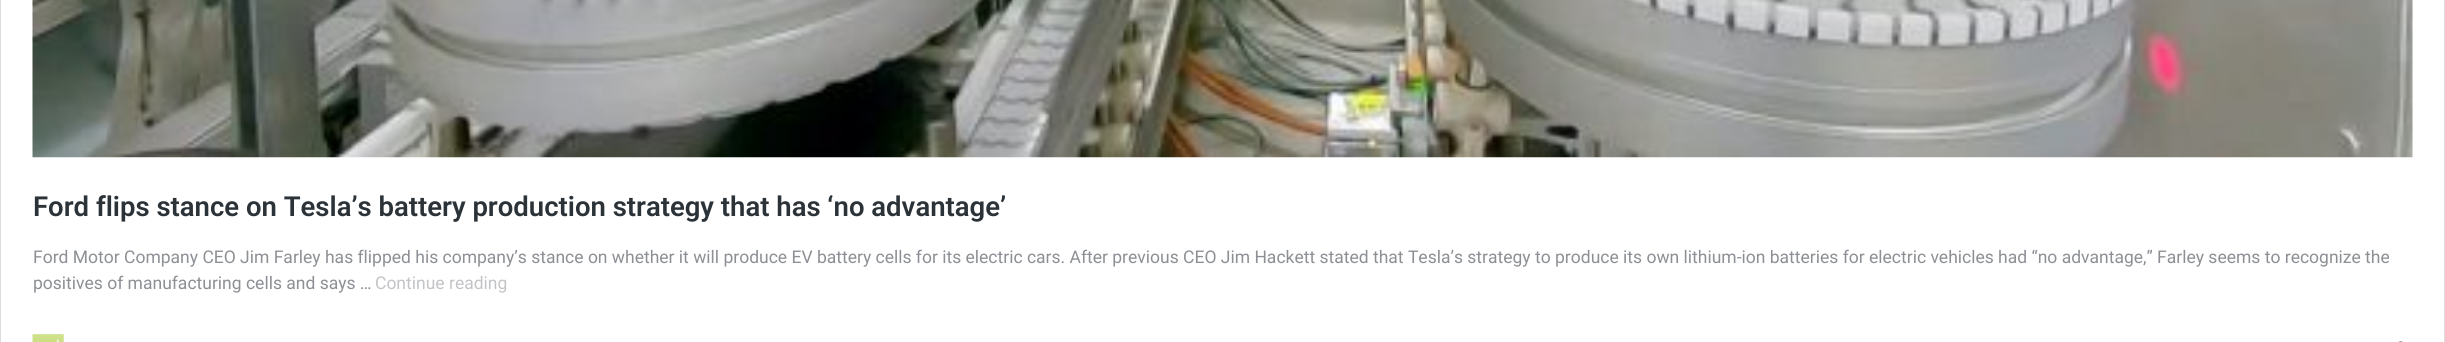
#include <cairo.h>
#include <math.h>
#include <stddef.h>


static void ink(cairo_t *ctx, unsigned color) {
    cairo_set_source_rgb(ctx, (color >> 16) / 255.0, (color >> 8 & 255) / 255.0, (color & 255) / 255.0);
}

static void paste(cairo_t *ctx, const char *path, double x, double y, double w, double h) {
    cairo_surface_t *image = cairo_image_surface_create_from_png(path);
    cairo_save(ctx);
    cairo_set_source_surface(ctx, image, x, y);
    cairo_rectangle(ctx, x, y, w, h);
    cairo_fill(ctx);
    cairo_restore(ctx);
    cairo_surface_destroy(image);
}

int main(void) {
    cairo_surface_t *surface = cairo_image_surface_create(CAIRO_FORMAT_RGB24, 2445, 342);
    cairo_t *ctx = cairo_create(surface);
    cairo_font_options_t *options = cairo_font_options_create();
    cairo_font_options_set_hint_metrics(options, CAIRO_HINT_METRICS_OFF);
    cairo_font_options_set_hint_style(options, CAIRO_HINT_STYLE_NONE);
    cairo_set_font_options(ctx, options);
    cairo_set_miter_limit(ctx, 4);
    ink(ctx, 0xFFFFFF);
    cairo_paint(ctx);
    cairo_rectangle(ctx, 0.5, -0.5, 2444, 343);
    ink(ctx, 0xDCDCDE);
    cairo_set_line_width(ctx, 1);
    cairo_stroke(ctx);
    paste(ctx, "media/1.png", 32, 0, 2381, 158);
    cairo_select_font_face(ctx, "Roboto SemiBold", CAIRO_FONT_SLANT_NORMAL, CAIRO_FONT_WEIGHT_NORMAL);
    cairo_set_font_size(ctx, 27.5);
    ink(ctx, 0x2C3338);
    cairo_move_to(ctx, 33, 216);
    cairo_show_text(ctx, "Ford flips stance on Tesla’s battery production strategy that has ‘no advantage’");
    cairo_select_font_face(ctx, "Roboto", CAIRO_FONT_SLANT_NORMAL, CAIRO_FONT_WEIGHT_NORMAL);
    cairo_set_font_size(ctx, 17.5);
    ink(ctx, 0x8C8F94);
    cairo_move_to(ctx, 33, 263);
    cairo_show_text(ctx, "Ford Motor Company CEO Jim Farley has flipped his company’s stance on whether it will produce EV battery cells for its electric cars. After previous CEO Jim Hackett stated that Tesla’s strategy to produce its own lithium-ion batteries for electric vehicles had “no advantage,” Farley seems to recognize the");
    cairo_move_to(ctx, 33, 289);
    cairo_show_text(ctx, "positives of manufacturing cells and says …");
    ink(ctx, 0xC3C4C7);
    cairo_move_to(ctx, 375, 289);
    cairo_show_text(ctx, "Continue reading");
    paste(ctx, "media/2.png", 32, 334, 32, 8);
    paste(ctx, "media/3.png", 2398, 341, 5, 1);
    cairo_surface_write_to_png(surface, "image.png");
    cairo_font_options_destroy(options);
    cairo_destroy(ctx);
    cairo_surface_destroy(surface);
    return 0;
}
